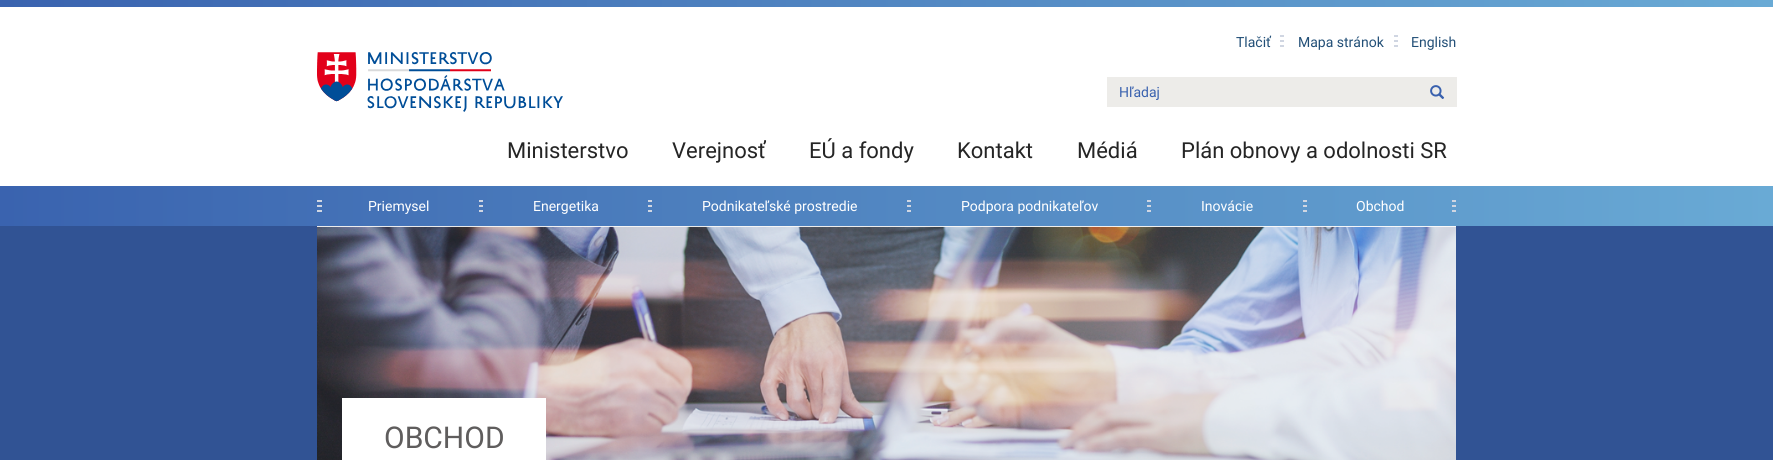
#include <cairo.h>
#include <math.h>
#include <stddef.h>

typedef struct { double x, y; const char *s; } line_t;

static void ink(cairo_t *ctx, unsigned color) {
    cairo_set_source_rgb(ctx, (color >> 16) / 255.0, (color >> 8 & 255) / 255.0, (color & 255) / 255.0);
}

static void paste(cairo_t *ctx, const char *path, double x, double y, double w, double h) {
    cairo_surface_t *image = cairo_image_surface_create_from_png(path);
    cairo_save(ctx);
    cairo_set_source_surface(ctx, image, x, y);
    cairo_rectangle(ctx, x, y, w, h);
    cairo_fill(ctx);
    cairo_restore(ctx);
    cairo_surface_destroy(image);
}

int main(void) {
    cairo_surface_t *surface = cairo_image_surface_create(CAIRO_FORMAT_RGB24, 1773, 460);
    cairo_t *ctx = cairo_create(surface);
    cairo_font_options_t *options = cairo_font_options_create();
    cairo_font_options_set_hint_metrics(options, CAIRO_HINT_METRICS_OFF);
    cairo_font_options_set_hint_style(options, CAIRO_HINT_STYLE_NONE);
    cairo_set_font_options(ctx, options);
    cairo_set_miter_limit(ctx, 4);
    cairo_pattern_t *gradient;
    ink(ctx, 0xFFFFFF);
    cairo_paint(ctx);
    gradient = cairo_pattern_create_linear(0, 113, 1773, 113);
    cairo_pattern_add_color_stop_rgba(gradient, 0, 0.227, 0.388, 0.686, 1);
    cairo_pattern_add_color_stop_rgba(gradient, 1, 0.412, 0.667, 0.835, 1);
    cairo_set_source(ctx, gradient);
    cairo_pattern_destroy(gradient);
    cairo_rectangle(ctx, 0, 0, 1773, 226);
    cairo_fill(ctx);
    ink(ctx, 0xFFFFFF);
    cairo_rectangle(ctx, 0, 7, 1773, 179);
    cairo_fill(ctx);
    cairo_select_font_face(ctx, "Roboto", CAIRO_FONT_SLANT_NORMAL, CAIRO_FONT_WEIGHT_NORMAL);
    cairo_set_font_size(ctx, 14);
    ink(ctx, 0x224F77);
    cairo_move_to(ctx, 1236, 47);
    cairo_show_text(ctx, "Tlačiť");
    paste(ctx, "media/1.png", 1280, 35, 4, 12);
    cairo_move_to(ctx, 1298, 47);
    cairo_show_text(ctx, "Mapa stránok");
    paste(ctx, "media/1.png", 1394, 35, 4, 12);
    cairo_move_to(ctx, 1411, 47);
    cairo_show_text(ctx, "English");
    paste(ctx, "media/2.png", 317, 52, 246, 60);
    ink(ctx, 0xEDECE9);
    cairo_rectangle(ctx, 1107, 77, 350, 30);
    cairo_fill(ctx);
    ink(ctx, 0x3961AE);
    cairo_move_to(ctx, 1119, 97);
    cairo_show_text(ctx, "Hľadaj");
    paste(ctx, "media/3.png", 1430, 85, 15, 14);
    cairo_set_font_size(ctx, 22);
    ink(ctx, 0x252525);
    {
        static const line_t items[] = {
            {507, 158, "Ministerstvo"},
            {672, 158, "Verejnosť"},
            {809, 158, "EÚ a fondy"},
            {957, 158, "Kontakt"},
            {1077, 158, "Médiá"},
            {1181, 158, "Plán obnovy a odolnosti SR"},
        };
        for (size_t i = 0; i < sizeof items / sizeof *items; i++) {
            cairo_move_to(ctx, items[i].x, items[i].y);
            cairo_show_text(ctx, items[i].s);
        }
    }
    paste(ctx, "media/4.png", 317, 200, 164, 12);
    cairo_set_font_size(ctx, 14);
    ink(ctx, 0xFFFFFF);
    cairo_move_to(ctx, 368, 211);
    cairo_show_text(ctx, "Priemysel");
    paste(ctx, "media/5.png", 481, 200, 169, 12);
    cairo_move_to(ctx, 533, 211);
    cairo_show_text(ctx, "Energetika");
    paste(ctx, "media/6.png", 650, 200, 259, 12);
    cairo_move_to(ctx, 702, 211);
    cairo_show_text(ctx, "Podnikateľské prostredie");
    paste(ctx, "media/7.png", 909, 200, 240, 12);
    cairo_move_to(ctx, 961, 211);
    cairo_show_text(ctx, "Podpora podnikateľov");
    paste(ctx, "media/8.png", 1149, 200, 156, 12);
    cairo_move_to(ctx, 1201, 211);
    cairo_show_text(ctx, "Inovácie");
    paste(ctx, "media/9.png", 1305, 200, 151, 12);
    cairo_move_to(ctx, 1356, 211);
    cairo_show_text(ctx, "Obchod");
    ink(ctx, 0x315394);
    cairo_rectangle(ctx, 0, 226, 1773, 234);
    cairo_fill(ctx);
    paste(ctx, "media/10.png", 317, 226, 1139, 234);
    ink(ctx, 0xFFFFFF);
    cairo_rectangle(ctx, 342, 398, 204, 62);
    cairo_fill(ctx);
    cairo_set_font_size(ctx, 30);
    ink(ctx, 0x5F5D5D);
    cairo_move_to(ctx, 384, 448);
    cairo_show_text(ctx, "OBCHOD");
    cairo_surface_write_to_png(surface, "image.png");
    cairo_font_options_destroy(options);
    cairo_destroy(ctx);
    cairo_surface_destroy(surface);
    return 0;
}
